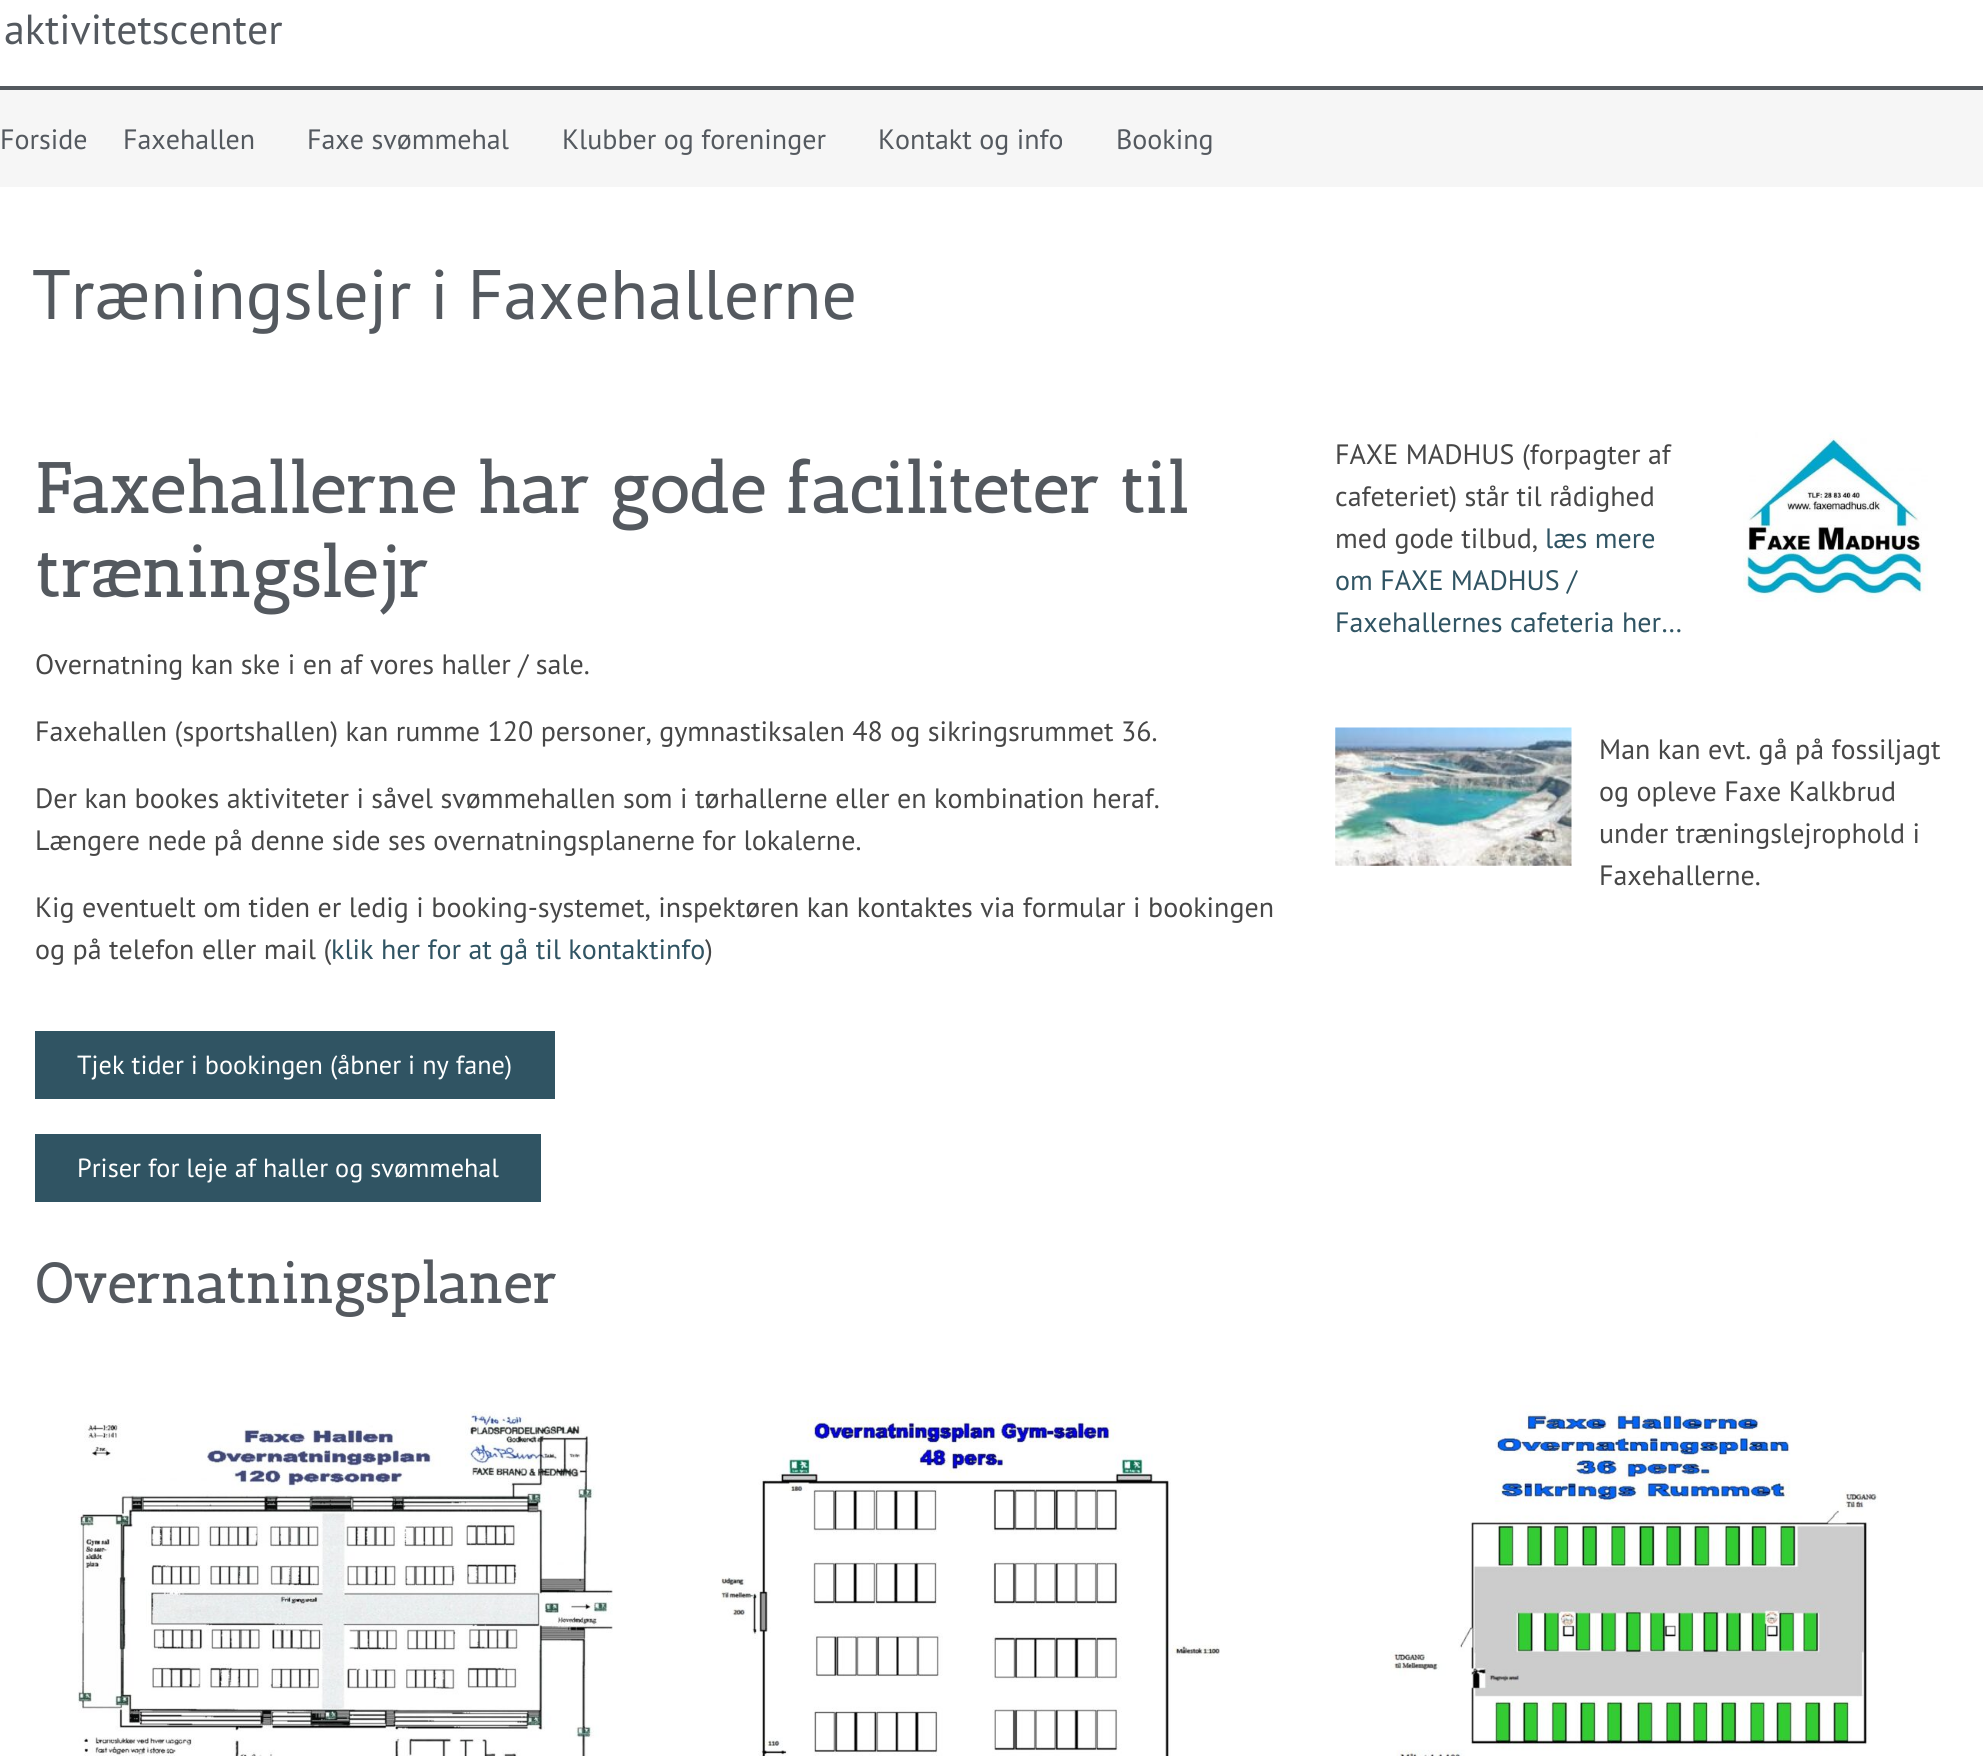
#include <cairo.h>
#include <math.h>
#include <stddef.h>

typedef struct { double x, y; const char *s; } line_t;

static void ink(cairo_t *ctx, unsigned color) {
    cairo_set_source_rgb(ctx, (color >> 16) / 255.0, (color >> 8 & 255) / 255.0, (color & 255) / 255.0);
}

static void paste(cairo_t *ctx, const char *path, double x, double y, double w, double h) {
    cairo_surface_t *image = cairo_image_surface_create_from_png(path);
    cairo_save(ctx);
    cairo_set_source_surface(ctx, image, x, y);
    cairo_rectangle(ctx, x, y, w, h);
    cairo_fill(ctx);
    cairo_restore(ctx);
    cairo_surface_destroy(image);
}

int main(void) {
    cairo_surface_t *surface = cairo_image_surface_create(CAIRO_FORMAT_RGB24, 1983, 1756);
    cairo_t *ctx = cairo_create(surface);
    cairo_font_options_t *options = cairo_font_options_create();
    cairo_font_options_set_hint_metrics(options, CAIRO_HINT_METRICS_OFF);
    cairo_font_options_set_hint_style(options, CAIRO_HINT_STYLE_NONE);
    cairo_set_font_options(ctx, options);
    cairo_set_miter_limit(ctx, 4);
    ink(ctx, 0xFFFFFF);
    cairo_paint(ctx);
    cairo_select_font_face(ctx, "PT Sans", CAIRO_FONT_SLANT_NORMAL, CAIRO_FONT_WEIGHT_NORMAL);
    cairo_set_font_size(ctx, 42);
    ink(ctx, 0x54595F);
    cairo_move_to(ctx, 4, 44);
    cairo_show_text(ctx, "aktivitetscenter");
    ink(ctx, 0xF6F6F6);
    cairo_rectangle(ctx, 0, 90, 1983, 97);
    cairo_fill(ctx);
    ink(ctx, 0x54595F);
    cairo_rectangle(ctx, 0, 86, 1983, 4);
    cairo_fill(ctx);
    cairo_set_font_size(ctx, 28);
    {
        static const line_t items[] = {
            {0, 149, "Forside"},
            {123, 149, "Faxehallen"},
            {307, 149, "Faxe svømmehal"},
            {562, 149, "Klubber og foreninger"},
            {878, 149, "Kontakt og info"},
            {1116, 149, "Booking"},
        };
        for (size_t i = 0; i < sizeof items / sizeof *items; i++) {
            cairo_move_to(ctx, items[i].x, items[i].y);
            cairo_show_text(ctx, items[i].s);
        }
    }
    cairo_set_font_size(ctx, 70);
    cairo_move_to(ctx, 32, 319);
    cairo_show_text(ctx, "Træningslejr i Faxehallerne");
    cairo_select_font_face(ctx, "Antic Slab", CAIRO_FONT_SLANT_NORMAL, CAIRO_FONT_WEIGHT_BOLD);
    cairo_move_to(ctx, 35, 513);
    cairo_show_text(ctx, "Faxehallerne har gode faciliteter til");
    cairo_move_to(ctx, 35, 597);
    cairo_show_text(ctx, "træningslejr");
    cairo_select_font_face(ctx, "PT Sans", CAIRO_FONT_SLANT_NORMAL, CAIRO_FONT_WEIGHT_NORMAL);
    cairo_set_font_size(ctx, 28);
    ink(ctx, 0x474747);
    {
        static const line_t items[] = {
            {35, 674, "Overnatning kan ske i en af vores haller / sale."},
            {35, 741, "Faxehallen (sportshallen) kan rumme 120 personer, gymnastiksalen 48 og sikringsrummet 36."},
            {35, 808, "Der kan bookes aktiviteter i såvel svømmehallen som i tørhallerne eller en kombination heraf."},
            {35, 850, "Længere nede på denne side ses overnatningsplanerne for lokalerne."},
            {35, 917, "Kig eventuelt om tiden er ledig i booking-systemet, inspektøren kan kontaktes via formular i bookingen"},
            {35, 959, "og på telefon eller mail ("},
        };
        for (size_t i = 0; i < sizeof items / sizeof *items; i++) {
            cairo_move_to(ctx, items[i].x, items[i].y);
            cairo_show_text(ctx, items[i].s);
        }
    }
    ink(ctx, 0x305463);
    cairo_move_to(ctx, 331, 959);
    cairo_show_text(ctx, "klik her for at gå til kontaktinfo");
    ink(ctx, 0x474747);
    cairo_move_to(ctx, 705, 959);
    cairo_show_text(ctx, ")");
    ink(ctx, 0x305463);
    cairo_rectangle(ctx, 35, 1031, 520, 68);
    cairo_fill(ctx);
    cairo_set_font_size(ctx, 26.25);
    ink(ctx, 0xFFFFFF);
    cairo_move_to(ctx, 77, 1074);
    cairo_show_text(ctx, "Tjek tider i bookingen (åbner i ny fane)");
    ink(ctx, 0x305463);
    cairo_rectangle(ctx, 35, 1134, 506, 68);
    cairo_fill(ctx);
    ink(ctx, 0xFFFFFF);
    cairo_move_to(ctx, 77, 1177);
    cairo_show_text(ctx, "Priser for leje af haller og svømmehal");
    cairo_set_font_size(ctx, 28);
    ink(ctx, 0x474747);
    cairo_move_to(ctx, 1335, 464);
    cairo_show_text(ctx, "FAXE MADHUS (forpagter af");
    paste(ctx, "media/1.png", 1743, 432, 185, 170);
    cairo_move_to(ctx, 1335, 506);
    cairo_show_text(ctx, "cafeteriet) står til rådighed");
    cairo_move_to(ctx, 1335, 548);
    cairo_show_text(ctx, "med gode tilbud,");
    ink(ctx, 0x305463);
    {
        static const line_t items[] = {
            {1545, 548, "læs mere"},
            {1335, 590, "om FAXE MADHUS /"},
            {1335, 632, "Faxehallernes cafeteria her…"},
        };
        for (size_t i = 0; i < sizeof items / sizeof *items; i++) {
            cairo_move_to(ctx, items[i].x, items[i].y);
            cairo_show_text(ctx, items[i].s);
        }
    }
    paste(ctx, "media/2.png", 1335, 727, 237, 139);
    ink(ctx, 0x474747);
    {
        static const line_t items[] = {
            {1599, 759, "Man kan evt. gå på fossiljagt"},
            {1599, 801, "og opleve Faxe Kalkbrud"},
            {1599, 843, "under træningslejrophold i"},
            {1599, 885, "Faxehallerne."},
        };
        for (size_t i = 0; i < sizeof items / sizeof *items; i++) {
            cairo_move_to(ctx, items[i].x, items[i].y);
            cairo_show_text(ctx, items[i].s);
        }
    }
    cairo_select_font_face(ctx, "Antic Slab", CAIRO_FONT_SLANT_NORMAL, CAIRO_FONT_WEIGHT_BOLD);
    cairo_set_font_size(ctx, 56);
    ink(ctx, 0x54595F);
    cairo_move_to(ctx, 35, 1303);
    cairo_show_text(ctx, "Overnatningsplaner");
    paste(ctx, "media/3.png", 77, 1411, 536, 345);
    paste(ctx, "media/4.png", 721, 1417, 499, 339);
    paste(ctx, "media/5.png", 1390, 1405, 488, 351);
    cairo_surface_write_to_png(surface, "image.png");
    cairo_font_options_destroy(options);
    cairo_destroy(ctx);
    cairo_surface_destroy(surface);
    return 0;
}
